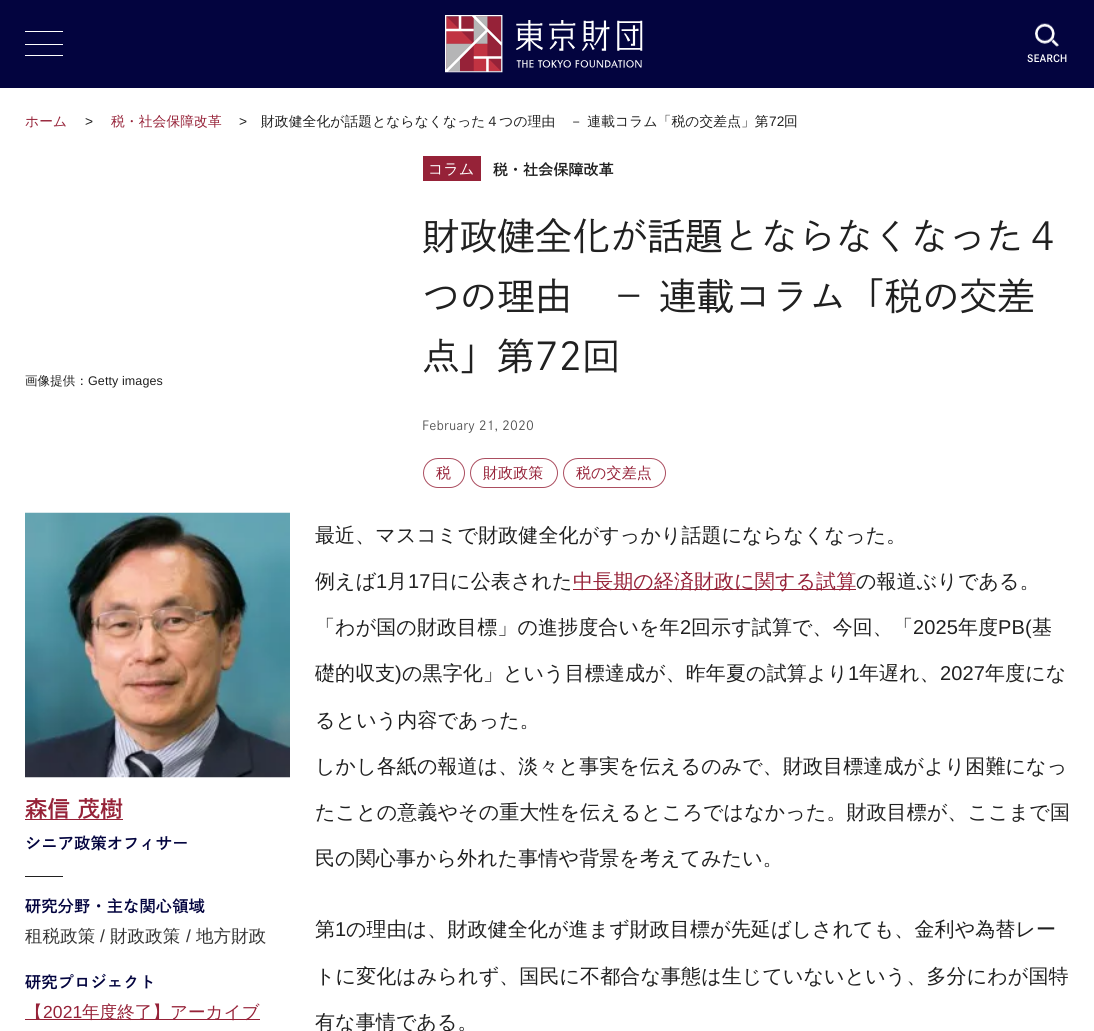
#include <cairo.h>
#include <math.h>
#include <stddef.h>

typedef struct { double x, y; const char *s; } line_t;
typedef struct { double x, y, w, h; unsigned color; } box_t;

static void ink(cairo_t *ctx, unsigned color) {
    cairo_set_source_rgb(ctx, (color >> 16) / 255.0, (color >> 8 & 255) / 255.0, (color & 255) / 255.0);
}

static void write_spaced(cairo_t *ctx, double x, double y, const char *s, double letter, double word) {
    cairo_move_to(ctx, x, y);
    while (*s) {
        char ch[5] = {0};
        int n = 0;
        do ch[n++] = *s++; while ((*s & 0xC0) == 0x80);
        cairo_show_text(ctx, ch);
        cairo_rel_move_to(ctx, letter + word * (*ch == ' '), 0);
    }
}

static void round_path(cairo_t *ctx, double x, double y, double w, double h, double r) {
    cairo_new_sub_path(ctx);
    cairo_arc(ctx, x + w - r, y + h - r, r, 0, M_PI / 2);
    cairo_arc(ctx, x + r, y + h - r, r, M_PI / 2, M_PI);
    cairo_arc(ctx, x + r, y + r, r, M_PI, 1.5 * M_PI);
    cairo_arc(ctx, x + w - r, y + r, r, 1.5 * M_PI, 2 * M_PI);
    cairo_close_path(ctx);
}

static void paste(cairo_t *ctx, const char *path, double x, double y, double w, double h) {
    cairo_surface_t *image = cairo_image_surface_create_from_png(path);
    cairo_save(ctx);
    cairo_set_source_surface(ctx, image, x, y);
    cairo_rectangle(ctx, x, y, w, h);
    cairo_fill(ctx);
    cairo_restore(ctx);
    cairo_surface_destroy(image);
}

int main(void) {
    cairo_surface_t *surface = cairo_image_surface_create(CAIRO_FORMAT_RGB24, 1094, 1031);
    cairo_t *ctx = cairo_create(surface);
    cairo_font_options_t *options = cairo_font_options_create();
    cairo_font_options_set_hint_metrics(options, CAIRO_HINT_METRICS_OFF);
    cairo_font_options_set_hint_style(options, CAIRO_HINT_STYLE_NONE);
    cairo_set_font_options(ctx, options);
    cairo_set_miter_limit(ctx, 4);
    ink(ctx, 0xFFFFFF);
    cairo_paint(ctx);
    {
        static const box_t items[] = {
            {0, 0, 1094, 88, 0x03043F},
            {25, 31, 38, 1, 0xFFFFFF},
            {25, 44, 38, 1, 0xFFFFFF},
            {25, 55, 38, 1, 0xFFFFFF},
        };
        for (size_t i = 0; i < sizeof items / sizeof *items; i++) {
            ink(ctx, items[i].color);
            cairo_rectangle(ctx, items[i].x, items[i].y, items[i].w, items[i].h);
            cairo_fill(ctx);
        }
    }
    paste(ctx, "media/1.png", 445, 15, 198, 58);
    paste(ctx, "media/2.png", 1035, 23, 24, 24);
    cairo_select_font_face(ctx, "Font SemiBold", CAIRO_FONT_SLANT_NORMAL, CAIRO_FONT_WEIGHT_NORMAL);
    cairo_set_font_size(ctx, 10);
    cairo_move_to(ctx, 1027, 62);
    cairo_show_text(ctx, "SEARCH");
    cairo_select_font_face(ctx, "WenQuanYi Zen Hei Medium", CAIRO_FONT_SLANT_NORMAL, CAIRO_FONT_WEIGHT_NORMAL);
    cairo_set_font_size(ctx, 13.75);
    ink(ctx, 0x962238);
    write_spaced(ctx, 25, 126, "ホーム", 0.1, 0);
    cairo_select_font_face(ctx, "Liberation Sans", CAIRO_FONT_SLANT_NORMAL, CAIRO_FONT_WEIGHT_NORMAL);
    ink(ctx, 0x202020);
    write_spaced(ctx, 85, 126, ">", 0.1, 0);
    cairo_select_font_face(ctx, "WenQuanYi Zen Hei Medium", CAIRO_FONT_SLANT_NORMAL, CAIRO_FONT_WEIGHT_NORMAL);
    ink(ctx, 0x962238);
    write_spaced(ctx, 111, 126, "税・社会保障改革", 0.1, 0);
    cairo_select_font_face(ctx, "Liberation Sans", CAIRO_FONT_SLANT_NORMAL, CAIRO_FONT_WEIGHT_NORMAL);
    ink(ctx, 0x202020);
    write_spaced(ctx, 239, 126, ">", 0.1, 0);
    cairo_select_font_face(ctx, "WenQuanYi Zen Hei Medium", CAIRO_FONT_SLANT_NORMAL, CAIRO_FONT_WEIGHT_NORMAL);
    write_spaced(ctx, 261, 126, "財政健全化が話題とならなくなった４つの理由　－ 連載コラム「税の交差点」第", 0.1, 0);
    cairo_select_font_face(ctx, "Liberation Sans", CAIRO_FONT_SLANT_NORMAL, CAIRO_FONT_WEIGHT_NORMAL);
    write_spaced(ctx, 769, 126, "72", 0.1, 0);
    cairo_select_font_face(ctx, "WenQuanYi Zen Hei Medium", CAIRO_FONT_SLANT_NORMAL, CAIRO_FONT_WEIGHT_NORMAL);
    write_spaced(ctx, 784, 126, "回", 0.1, 0);
    cairo_set_font_size(ctx, 12.5);
    write_spaced(ctx, 25, 385, "画像提供：", 0.1, 0);
    cairo_select_font_face(ctx, "Liberation Sans", CAIRO_FONT_SLANT_NORMAL, CAIRO_FONT_WEIGHT_NORMAL);
    write_spaced(ctx, 88, 385, "Getty images", 0.1, 0);
    ink(ctx, 0x962238);
    cairo_rectangle(ctx, 423, 156, 58, 25);
    cairo_fill(ctx);
    cairo_select_font_face(ctx, "WenQuanYi Zen Hei Medium", CAIRO_FONT_SLANT_NORMAL, CAIRO_FONT_WEIGHT_NORMAL);
    cairo_set_font_size(ctx, 15);
    ink(ctx, 0xFFFFFF);
    write_spaced(ctx, 428, 174, "コラム", 0.1, 0);
    cairo_select_font_face(ctx, "Font SemiBold", CAIRO_FONT_SLANT_NORMAL, CAIRO_FONT_WEIGHT_NORMAL);
    ink(ctx, 0x202020);
    write_spaced(ctx, 493, 175, "税・社会保障改革", 0.1, 0);
    cairo_select_font_face(ctx, "Font", CAIRO_FONT_SLANT_NORMAL, CAIRO_FONT_WEIGHT_NORMAL);
    cairo_set_font_size(ctx, 37.5);
    {
        static const line_t items[] = {
            {422, 250, "財政健全化が話題とならなくなった４"},
            {422, 310, "つの理由　－ 連載コラム「税の交差"},
            {422, 370, "点」第72回"},
        };
        for (size_t i = 0; i < sizeof items / sizeof *items; i++) {
            write_spaced(ctx, items[i].x, items[i].y, items[i].s, 0.1, 0);
        }
    }
    cairo_set_font_size(ctx, 12.5);
    ink(ctx, 0x505050);
    write_spaced(ctx, 422, 430, "February 21, 2020", 0.1, 0);
    round_path(ctx, 423.5, 458.5, 41, 29, 14.5);
    ink(ctx, 0xAB4E60);
    cairo_set_line_width(ctx, 1);
    cairo_stroke(ctx);
    cairo_select_font_face(ctx, "WenQuanYi Zen Hei Medium", CAIRO_FONT_SLANT_NORMAL, CAIRO_FONT_WEIGHT_NORMAL);
    cairo_set_font_size(ctx, 15);
    ink(ctx, 0x962238);
    write_spaced(ctx, 436, 478, "税", 0.1, 0);
    round_path(ctx, 470.5, 458.5, 87, 29, 14.5);
    ink(ctx, 0xAB4E60);
    cairo_stroke(ctx);
    ink(ctx, 0x962238);
    write_spaced(ctx, 483, 478, "財政政策", 0.1, 0);
    round_path(ctx, 563.5, 458.5, 102, 29, 14.5);
    ink(ctx, 0xAB4E60);
    cairo_stroke(ctx);
    ink(ctx, 0x962238);
    write_spaced(ctx, 576, 478, "税の交差点", 0.1, 0);
    paste(ctx, "media/3.png", 25, 512, 265, 266);
    cairo_select_font_face(ctx, "Font SemiBold", CAIRO_FONT_SLANT_NORMAL, CAIRO_FONT_WEIGHT_NORMAL);
    cairo_set_font_size(ctx, 22.5);
    write_spaced(ctx, 25, 817, "森信 茂樹", 0.1, 0);
    cairo_rectangle(ctx, 25, 819, 98, 1);
    cairo_fill(ctx);
    cairo_set_font_size(ctx, 16.25);
    ink(ctx, 0x03043F);
    write_spaced(ctx, 25, 849, "シニア政策オフィサー", 0.1, 0);
    ink(ctx, 0x202020);
    cairo_rectangle(ctx, 25, 876, 38, 1);
    cairo_fill(ctx);
    ink(ctx, 0x03043F);
    write_spaced(ctx, 25, 912, "研究分野・主な関心領域", 0.1, 0);
    cairo_select_font_face(ctx, "WenQuanYi Zen Hei Medium", CAIRO_FONT_SLANT_NORMAL, CAIRO_FONT_WEIGHT_NORMAL);
    cairo_set_font_size(ctx, 17.5);
    ink(ctx, 0x333333);
    write_spaced(ctx, 25, 942, "租税政策", 0.1, 0);
    cairo_select_font_face(ctx, "Liberation Sans", CAIRO_FONT_SLANT_NORMAL, CAIRO_FONT_WEIGHT_NORMAL);
    write_spaced(ctx, 100, 942, "/", 0.1, 0);
    cairo_select_font_face(ctx, "WenQuanYi Zen Hei Medium", CAIRO_FONT_SLANT_NORMAL, CAIRO_FONT_WEIGHT_NORMAL);
    write_spaced(ctx, 110, 942, "財政政策", 0.1, 0);
    cairo_select_font_face(ctx, "Liberation Sans", CAIRO_FONT_SLANT_NORMAL, CAIRO_FONT_WEIGHT_NORMAL);
    write_spaced(ctx, 186, 942, "/", 0.1, 0);
    cairo_select_font_face(ctx, "WenQuanYi Zen Hei Medium", CAIRO_FONT_SLANT_NORMAL, CAIRO_FONT_WEIGHT_NORMAL);
    write_spaced(ctx, 196, 942, "地方財政", 0.1, 0);
    cairo_select_font_face(ctx, "Font SemiBold", CAIRO_FONT_SLANT_NORMAL, CAIRO_FONT_WEIGHT_NORMAL);
    cairo_set_font_size(ctx, 16.25);
    ink(ctx, 0x03043F);
    write_spaced(ctx, 25, 988, "研究プロジェクト", 0.1, 0);
    ink(ctx, 0x962238);
    cairo_rectangle(ctx, 25, 1019, 235, 1);
    cairo_fill(ctx);
    cairo_select_font_face(ctx, "WenQuanYi Zen Hei Medium", CAIRO_FONT_SLANT_NORMAL, CAIRO_FONT_WEIGHT_NORMAL);
    cairo_set_font_size(ctx, 17.5);
    write_spaced(ctx, 25, 1018, "【", 0.1, 0);
    cairo_select_font_face(ctx, "Liberation Sans", CAIRO_FONT_SLANT_NORMAL, CAIRO_FONT_WEIGHT_NORMAL);
    write_spaced(ctx, 43, 1018, "2021", 0.1, 0);
    cairo_select_font_face(ctx, "WenQuanYi Zen Hei Medium", CAIRO_FONT_SLANT_NORMAL, CAIRO_FONT_WEIGHT_NORMAL);
    write_spaced(ctx, 82, 1018, "年度終了】アーカイブ", 0.1, 0);
    cairo_set_font_size(ctx, 20);
    ink(ctx, 0x202020);
    write_spaced(ctx, 315, 542, "最近、マスコミで財政健全化がすっかり話題にならなくなった。", 0.1, 0);
    write_spaced(ctx, 315, 588, "例えば", 0.1, 0);
    cairo_select_font_face(ctx, "Liberation Sans", CAIRO_FONT_SLANT_NORMAL, CAIRO_FONT_WEIGHT_NORMAL);
    write_spaced(ctx, 376, 588, "1", 0.1, 0);
    cairo_select_font_face(ctx, "WenQuanYi Zen Hei Medium", CAIRO_FONT_SLANT_NORMAL, CAIRO_FONT_WEIGHT_NORMAL);
    write_spaced(ctx, 387, 588, "月", 0.1, 0);
    cairo_select_font_face(ctx, "Liberation Sans", CAIRO_FONT_SLANT_NORMAL, CAIRO_FONT_WEIGHT_NORMAL);
    write_spaced(ctx, 408, 588, "17", 0.1, 0);
    cairo_select_font_face(ctx, "WenQuanYi Zen Hei Medium", CAIRO_FONT_SLANT_NORMAL, CAIRO_FONT_WEIGHT_NORMAL);
    write_spaced(ctx, 430, 588, "日に公表された", 0.1, 0);
    ink(ctx, 0x962238);
    cairo_rectangle(ctx, 573, 589, 283, 1);
    cairo_fill(ctx);
    write_spaced(ctx, 573, 588, "中長期の経済財政に関する試算", 0.1, 0);
    ink(ctx, 0x202020);
    write_spaced(ctx, 856, 588, "の報道ぶりである。", 0.1, 0);
    write_spaced(ctx, 315, 634, "「わが国の財政目標」の進捗度合いを年", 0.1, 0);
    cairo_select_font_face(ctx, "Liberation Sans", CAIRO_FONT_SLANT_NORMAL, CAIRO_FONT_WEIGHT_NORMAL);
    write_spaced(ctx, 680, 634, "2", 0.1, 0);
    cairo_select_font_face(ctx, "WenQuanYi Zen Hei Medium", CAIRO_FONT_SLANT_NORMAL, CAIRO_FONT_WEIGHT_NORMAL);
    write_spaced(ctx, 691, 634, "回示す試算で、今回、「", 0.1, 0);
    cairo_select_font_face(ctx, "Liberation Sans", CAIRO_FONT_SLANT_NORMAL, CAIRO_FONT_WEIGHT_NORMAL);
    write_spaced(ctx, 913, 634, "2025", 0.1, 0);
    cairo_select_font_face(ctx, "WenQuanYi Zen Hei Medium", CAIRO_FONT_SLANT_NORMAL, CAIRO_FONT_WEIGHT_NORMAL);
    write_spaced(ctx, 958, 634, "年度", 0.1, 0);
    cairo_select_font_face(ctx, "Liberation Sans", CAIRO_FONT_SLANT_NORMAL, CAIRO_FONT_WEIGHT_NORMAL);
    write_spaced(ctx, 998, 634, "PB(", 0.1, 0);
    cairo_select_font_face(ctx, "WenQuanYi Zen Hei Medium", CAIRO_FONT_SLANT_NORMAL, CAIRO_FONT_WEIGHT_NORMAL);
    write_spaced(ctx, 1032, 634, "基", 0.1, 0);
    write_spaced(ctx, 315, 680, "礎的収支", 0.1, 0);
    cairo_select_font_face(ctx, "Liberation Sans", CAIRO_FONT_SLANT_NORMAL, CAIRO_FONT_WEIGHT_NORMAL);
    write_spaced(ctx, 395, 680, ")", 0.1, 0);
    cairo_select_font_face(ctx, "WenQuanYi Zen Hei Medium", CAIRO_FONT_SLANT_NORMAL, CAIRO_FONT_WEIGHT_NORMAL);
    write_spaced(ctx, 402, 680, "の黒字化」という目標達成が、昨年夏の試算より", 0.1, 0);
    cairo_select_font_face(ctx, "Liberation Sans", CAIRO_FONT_SLANT_NORMAL, CAIRO_FONT_WEIGHT_NORMAL);
    write_spaced(ctx, 848, 680, "1", 0.1, 0);
    cairo_select_font_face(ctx, "WenQuanYi Zen Hei Medium", CAIRO_FONT_SLANT_NORMAL, CAIRO_FONT_WEIGHT_NORMAL);
    write_spaced(ctx, 859, 680, "年遅れ、", 0.1, 0);
    cairo_select_font_face(ctx, "Liberation Sans", CAIRO_FONT_SLANT_NORMAL, CAIRO_FONT_WEIGHT_NORMAL);
    write_spaced(ctx, 940, 680, "2027", 0.1, 0);
    cairo_select_font_face(ctx, "WenQuanYi Zen Hei Medium", CAIRO_FONT_SLANT_NORMAL, CAIRO_FONT_WEIGHT_NORMAL);
    {
        static const line_t items[] = {
            {985, 680, "年度にな"},
            {315, 727, "るという内容であった。"},
            {315, 773, "しかし各紙の報道は、淡々と事実を伝えるのみで、財政目標達成がより困難になっ"},
            {315, 819, "たことの意義やその重大性を伝えるところではなかった。財政目標が、ここまで国"},
            {315, 865, "民の関心事から外れた事情や背景を考えてみたい。"},
            {315, 936, "第"},
        };
        for (size_t i = 0; i < sizeof items / sizeof *items; i++) {
            write_spaced(ctx, items[i].x, items[i].y, items[i].s, 0.1, 0);
        }
    }
    cairo_select_font_face(ctx, "Liberation Sans", CAIRO_FONT_SLANT_NORMAL, CAIRO_FONT_WEIGHT_NORMAL);
    write_spaced(ctx, 335, 936, "1", 0.1, 0);
    cairo_select_font_face(ctx, "WenQuanYi Zen Hei Medium", CAIRO_FONT_SLANT_NORMAL, CAIRO_FONT_WEIGHT_NORMAL);
    {
        static const line_t items[] = {
            {346, 936, "の理由は、財政健全化が進まず財政目標が先延ばしされても、金利や為替レー"},
            {315, 983, "トに変化はみられず、国民に不都合な事態は生じていないという、多分にわが国特"},
            {315, 1029, "有な事情である。"},
        };
        for (size_t i = 0; i < sizeof items / sizeof *items; i++) {
            write_spaced(ctx, items[i].x, items[i].y, items[i].s, 0.1, 0);
        }
    }
    cairo_surface_write_to_png(surface, "image.png");
    cairo_font_options_destroy(options);
    cairo_destroy(ctx);
    cairo_surface_destroy(surface);
    return 0;
}
